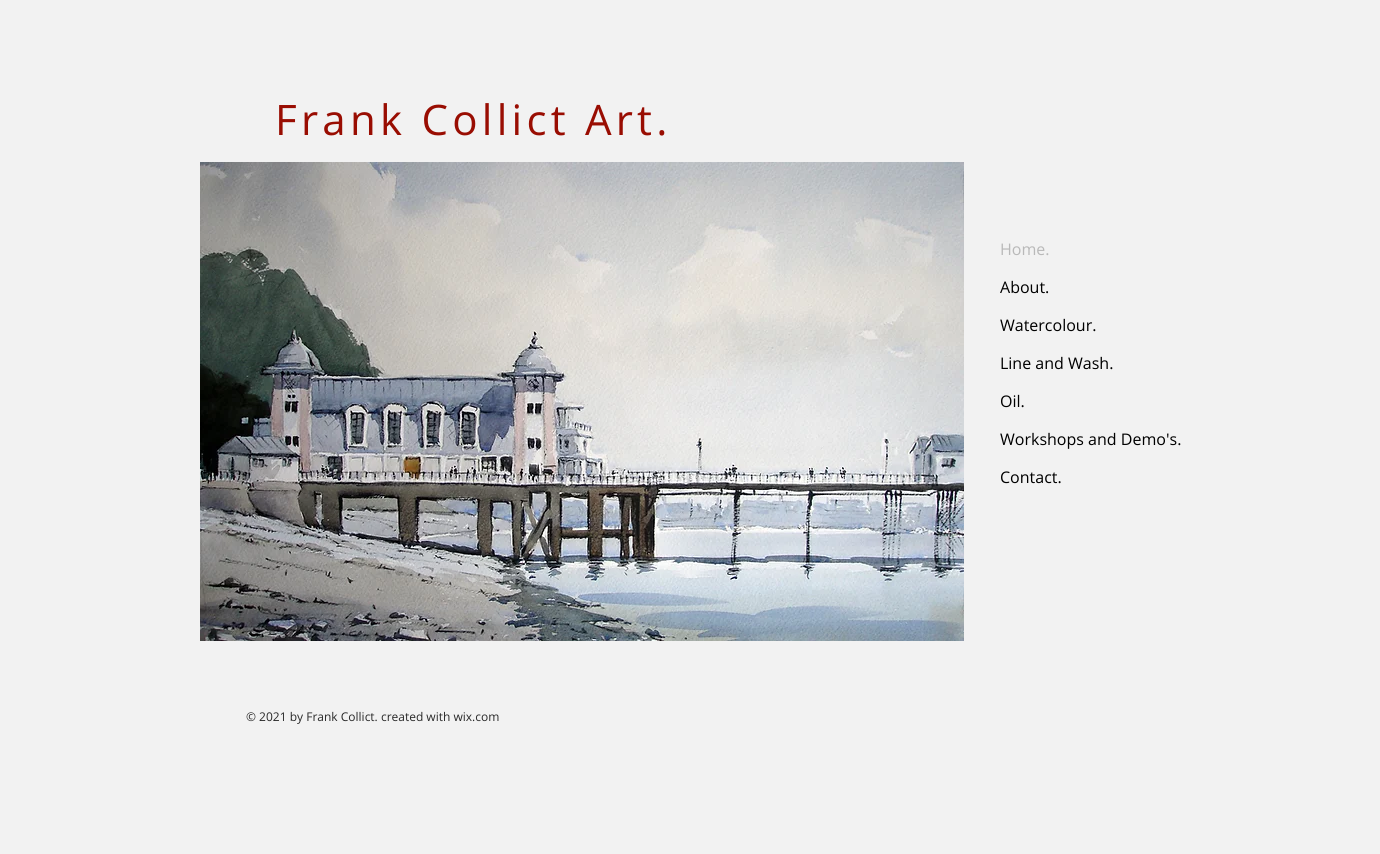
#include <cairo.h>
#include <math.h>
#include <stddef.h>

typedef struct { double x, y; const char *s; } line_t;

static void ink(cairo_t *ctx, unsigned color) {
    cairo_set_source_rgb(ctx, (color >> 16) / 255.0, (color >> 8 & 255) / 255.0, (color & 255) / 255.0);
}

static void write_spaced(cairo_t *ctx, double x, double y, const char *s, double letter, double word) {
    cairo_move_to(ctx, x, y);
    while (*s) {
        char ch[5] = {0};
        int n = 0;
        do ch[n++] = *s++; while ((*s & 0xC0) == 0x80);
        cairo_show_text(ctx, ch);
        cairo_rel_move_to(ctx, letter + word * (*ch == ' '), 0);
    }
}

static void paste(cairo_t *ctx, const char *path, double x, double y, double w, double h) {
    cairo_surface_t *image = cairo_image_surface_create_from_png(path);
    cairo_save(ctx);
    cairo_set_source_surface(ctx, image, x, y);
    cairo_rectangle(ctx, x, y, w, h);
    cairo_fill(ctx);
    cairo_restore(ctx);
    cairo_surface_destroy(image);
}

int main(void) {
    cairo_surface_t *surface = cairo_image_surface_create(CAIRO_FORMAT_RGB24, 1380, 854);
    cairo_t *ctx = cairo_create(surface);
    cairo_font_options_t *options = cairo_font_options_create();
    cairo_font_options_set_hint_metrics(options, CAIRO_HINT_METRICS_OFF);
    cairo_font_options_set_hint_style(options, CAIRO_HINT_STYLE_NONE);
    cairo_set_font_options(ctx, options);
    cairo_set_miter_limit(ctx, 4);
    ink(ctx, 0xF2F2F2);
    cairo_paint(ctx);
    cairo_select_font_face(ctx, "Open Sans", CAIRO_FONT_SLANT_NORMAL, CAIRO_FONT_WEIGHT_NORMAL);
    cairo_set_font_size(ctx, 42);
    ink(ctx, 0x990D02);
    write_spaced(ctx, 275, 135, "Frank Collict Art.", 4.25, 0);
    paste(ctx, "media/1.png", 200, 162, 764, 479);
    cairo_set_font_size(ctx, 16);
    ink(ctx, 0xB9B9B9);
    cairo_move_to(ctx, 1000, 255);
    cairo_show_text(ctx, "Home.");
    ink(ctx, 0x000000);
    {
        static const line_t items[] = {
            {1000, 293, "About."},
            {1000, 331, "Watercolour."},
            {1000, 369, "Line and Wash."},
            {1000, 407, "Oil."},
            {1000, 445, "Workshops and Demo's."},
            {1000, 483, "Contact."},
        };
        for (size_t i = 0; i < sizeof items / sizeof *items; i++) {
            cairo_move_to(ctx, items[i].x, items[i].y);
            cairo_show_text(ctx, items[i].s);
        }
    }
    cairo_set_font_size(ctx, 12);
    ink(ctx, 0x292929);
    cairo_move_to(ctx, 246, 721);
    cairo_show_text(ctx, "© 2021 by Frank Collict. created with wix.com");
    cairo_surface_write_to_png(surface, "image.png");
    cairo_font_options_destroy(options);
    cairo_destroy(ctx);
    cairo_surface_destroy(surface);
    return 0;
}
